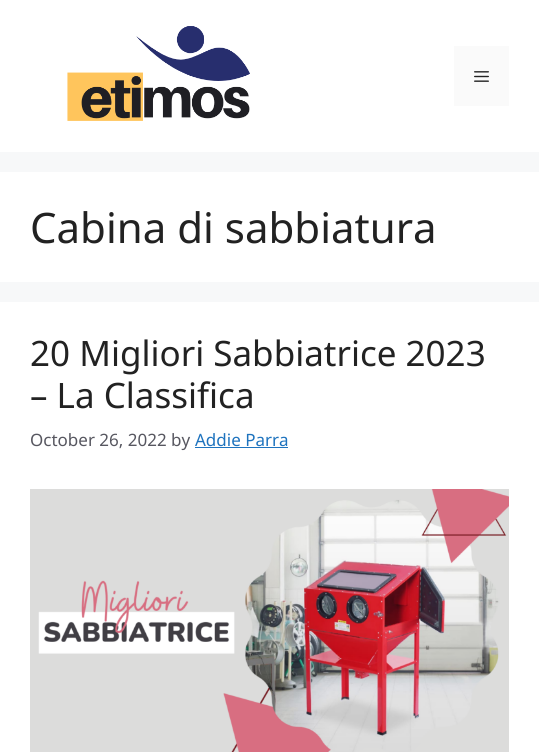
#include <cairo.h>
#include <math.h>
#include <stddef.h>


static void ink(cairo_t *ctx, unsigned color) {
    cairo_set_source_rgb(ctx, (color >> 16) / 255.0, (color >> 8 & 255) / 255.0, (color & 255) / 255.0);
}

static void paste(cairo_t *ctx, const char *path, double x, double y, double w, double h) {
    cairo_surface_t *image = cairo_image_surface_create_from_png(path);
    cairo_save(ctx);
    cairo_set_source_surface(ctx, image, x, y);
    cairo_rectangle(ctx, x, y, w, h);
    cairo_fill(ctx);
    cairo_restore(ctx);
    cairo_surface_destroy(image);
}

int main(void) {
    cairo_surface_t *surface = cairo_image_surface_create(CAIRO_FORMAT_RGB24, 539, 752);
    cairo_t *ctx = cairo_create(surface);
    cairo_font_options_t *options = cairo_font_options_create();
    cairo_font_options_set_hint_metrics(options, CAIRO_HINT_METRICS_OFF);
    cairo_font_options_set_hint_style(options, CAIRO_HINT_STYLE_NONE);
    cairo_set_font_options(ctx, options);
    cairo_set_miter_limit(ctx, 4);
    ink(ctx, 0xF7F8F9);
    cairo_paint(ctx);
    ink(ctx, 0xFFFFFF);
    cairo_rectangle(ctx, 0, 0, 539, 152);
    cairo_fill(ctx);
    paste(ctx, "media/1.png", 67, 26, 183, 95);
    ink(ctx, 0xFAFAFA);
    cairo_rectangle(ctx, 454, 46, 55, 60);
    cairo_fill(ctx);
    paste(ctx, "media/2.png", 474, 71, 15, 11);
    ink(ctx, 0xFFFFFF);
    cairo_rectangle(ctx, 0, 172, 539, 110);
    cairo_fill(ctx);
    cairo_select_font_face(ctx, "Noto Sans", CAIRO_FONT_SLANT_NORMAL, CAIRO_FONT_WEIGHT_NORMAL);
    cairo_set_font_size(ctx, 42);
    ink(ctx, 0x222222);
    cairo_move_to(ctx, 30, 243);
    cairo_show_text(ctx, "Cabina di sabbiatura");
    ink(ctx, 0xFFFFFF);
    cairo_rectangle(ctx, 0, 302, 539, 450);
    cairo_fill(ctx);
    cairo_set_font_size(ctx, 35);
    ink(ctx, 0x222222);
    cairo_move_to(ctx, 30, 366);
    cairo_show_text(ctx, "20 Migliori Sabbiatrice 2023");
    cairo_move_to(ctx, 30, 408);
    cairo_show_text(ctx, "– La Classifica");
    cairo_set_font_size(ctx, 17);
    ink(ctx, 0x575760);
    cairo_move_to(ctx, 30, 446);
    cairo_show_text(ctx, "October 26, 2022 by");
    ink(ctx, 0x1E73BE);
    cairo_move_to(ctx, 195, 446);
    cairo_show_text(ctx, "Addie Parra");
    cairo_rectangle(ctx, 195, 447, 93, 1);
    cairo_fill(ctx);
    paste(ctx, "media/3.png", 30, 489, 479, 263);
    cairo_surface_write_to_png(surface, "image.png");
    cairo_font_options_destroy(options);
    cairo_destroy(ctx);
    cairo_surface_destroy(surface);
    return 0;
}
